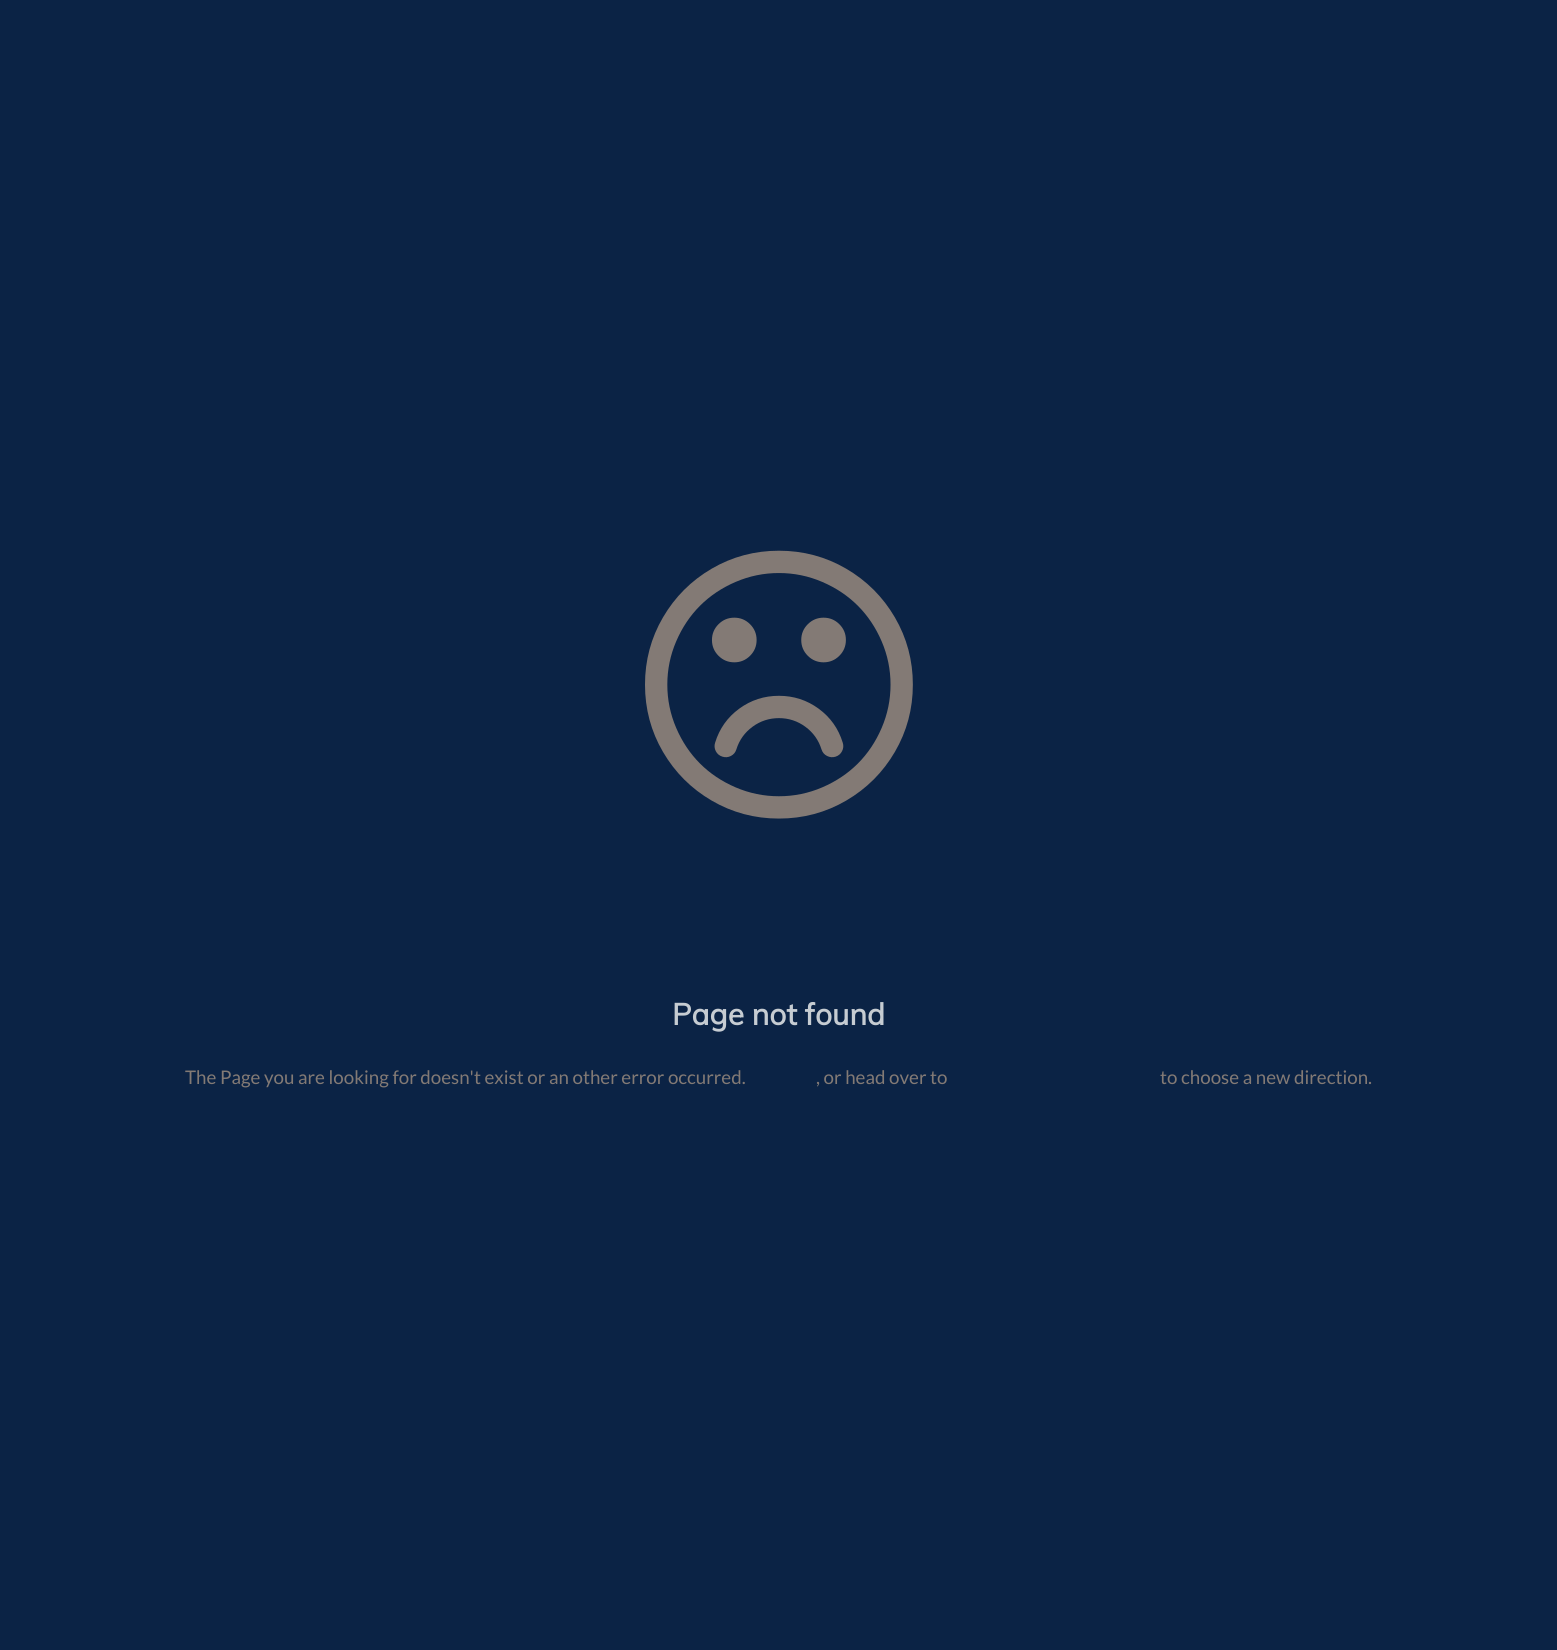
#include <cairo.h>
#include <math.h>
#include <stddef.h>

typedef struct { double x, y; const char *s; } line_t;

static void ink(cairo_t *ctx, unsigned color) {
    cairo_set_source_rgb(ctx, (color >> 16) / 255.0, (color >> 8 & 255) / 255.0, (color & 255) / 255.0);
}

static void paste(cairo_t *ctx, const char *path, double x, double y, double w, double h) {
    cairo_surface_t *image = cairo_image_surface_create_from_png(path);
    cairo_save(ctx);
    cairo_set_source_surface(ctx, image, x, y);
    cairo_rectangle(ctx, x, y, w, h);
    cairo_fill(ctx);
    cairo_restore(ctx);
    cairo_surface_destroy(image);
}

int main(void) {
    cairo_surface_t *surface = cairo_image_surface_create(CAIRO_FORMAT_RGB24, 1557, 1650);
    cairo_t *ctx = cairo_create(surface);
    cairo_font_options_t *options = cairo_font_options_create();
    cairo_font_options_set_hint_metrics(options, CAIRO_HINT_METRICS_OFF);
    cairo_font_options_set_hint_style(options, CAIRO_HINT_STYLE_NONE);
    cairo_set_font_options(ctx, options);
    cairo_set_miter_limit(ctx, 4);
    ink(ctx, 0x0B2345);
    cairo_paint(ctx);
    paste(ctx, "media/1.png", 645, 550, 268, 269);
    cairo_select_font_face(ctx, "Muli", CAIRO_FONT_SLANT_NORMAL, CAIRO_FONT_WEIGHT_BOLD);
    cairo_set_font_size(ctx, 30);
    ink(ctx, 0xC6CCD2);
    cairo_move_to(ctx, 672, 1025);
    cairo_show_text(ctx, "Page not found");
    cairo_select_font_face(ctx, "Lato", CAIRO_FONT_SLANT_NORMAL, CAIRO_FONT_WEIGHT_NORMAL);
    cairo_set_font_size(ctx, 18.75);
    ink(ctx, 0x837A75);
    {
        static const line_t items[] = {
            {185, 1084, "The Page you are looking for doesn't exist or an other error occurred."},
            {816, 1084, ", or head over to"},
            {1160, 1084, "to choose a new direction."},
        };
        for (size_t i = 0; i < sizeof items / sizeof *items; i++) {
            cairo_move_to(ctx, items[i].x, items[i].y);
            cairo_show_text(ctx, items[i].s);
        }
    }
    cairo_surface_write_to_png(surface, "image.png");
    cairo_font_options_destroy(options);
    cairo_destroy(ctx);
    cairo_surface_destroy(surface);
    return 0;
}
